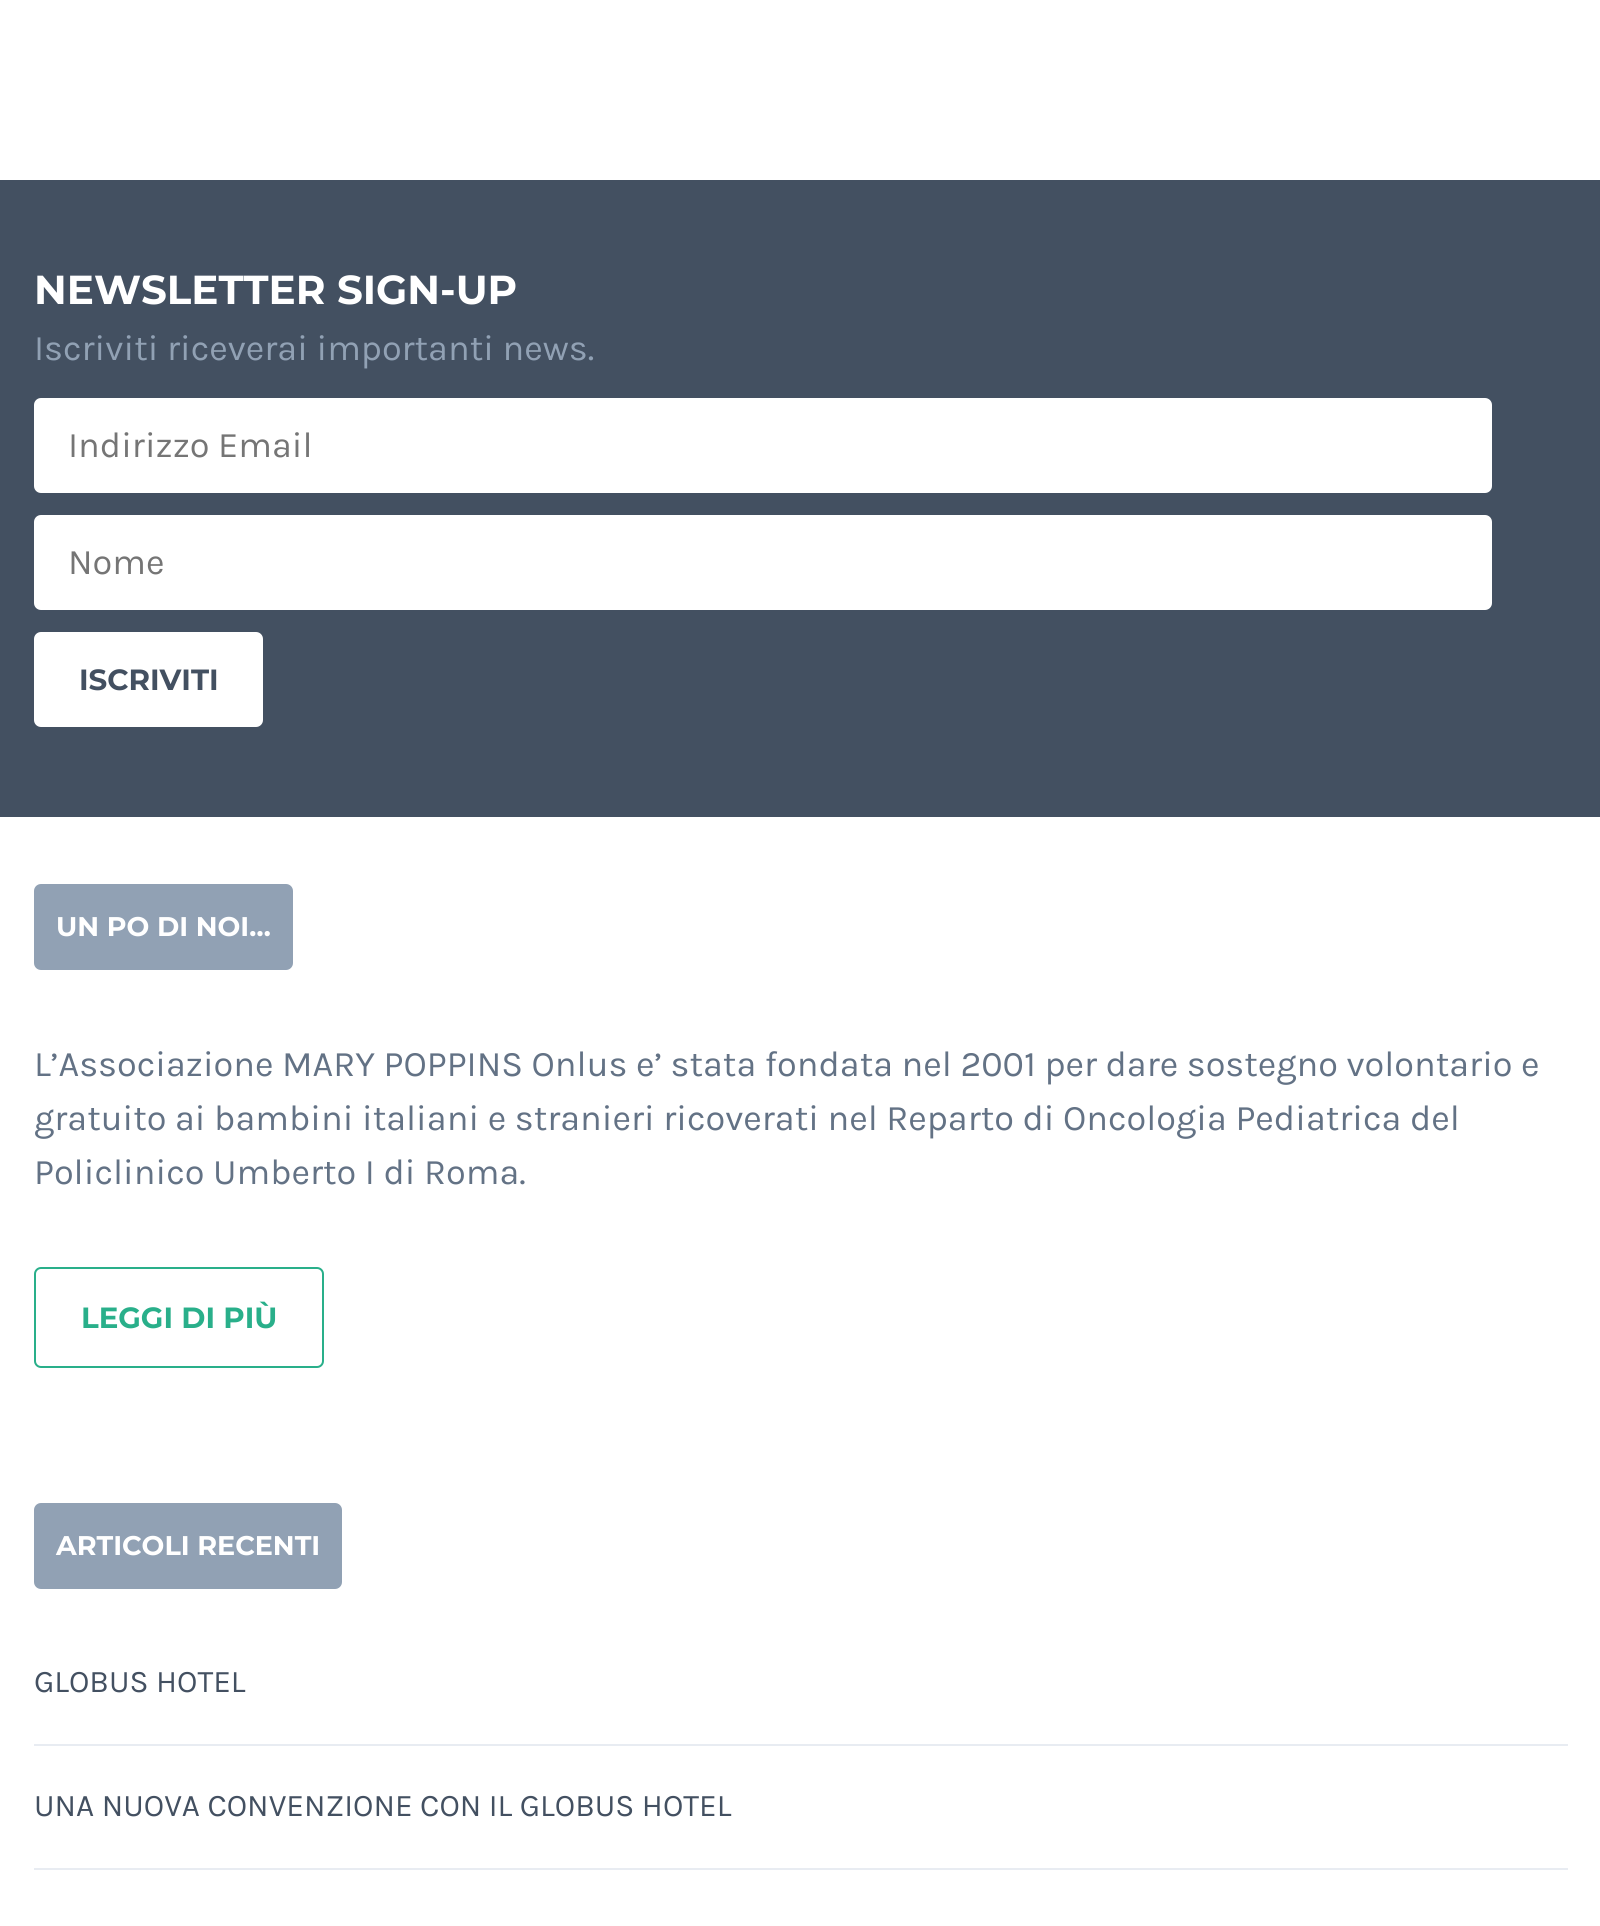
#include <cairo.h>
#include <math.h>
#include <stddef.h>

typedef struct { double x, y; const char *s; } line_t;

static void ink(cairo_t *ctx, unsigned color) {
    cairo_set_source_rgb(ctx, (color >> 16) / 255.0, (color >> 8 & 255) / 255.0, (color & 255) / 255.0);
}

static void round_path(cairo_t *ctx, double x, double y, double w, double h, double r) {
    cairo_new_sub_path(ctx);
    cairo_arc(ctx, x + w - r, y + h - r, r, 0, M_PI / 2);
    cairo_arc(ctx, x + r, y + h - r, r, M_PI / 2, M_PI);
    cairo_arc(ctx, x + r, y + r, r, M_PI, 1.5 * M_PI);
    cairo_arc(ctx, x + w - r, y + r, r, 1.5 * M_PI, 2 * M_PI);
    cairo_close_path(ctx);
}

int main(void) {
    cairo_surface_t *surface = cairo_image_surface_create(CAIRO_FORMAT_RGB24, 1600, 1926);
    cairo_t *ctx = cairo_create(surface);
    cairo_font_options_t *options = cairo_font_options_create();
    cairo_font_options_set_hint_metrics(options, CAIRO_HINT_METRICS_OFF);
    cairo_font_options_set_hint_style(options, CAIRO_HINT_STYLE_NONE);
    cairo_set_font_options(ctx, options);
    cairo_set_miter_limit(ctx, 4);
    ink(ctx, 0xFFFFFF);
    cairo_paint(ctx);
    ink(ctx, 0x435061);
    cairo_rectangle(ctx, 0, 180, 1600, 637);
    cairo_fill(ctx);
    cairo_select_font_face(ctx, "Montserrat", CAIRO_FONT_SLANT_NORMAL, CAIRO_FONT_WEIGHT_BOLD);
    cairo_set_font_size(ctx, 40.5);
    ink(ctx, 0xFFFFFF);
    cairo_move_to(ctx, 34, 304);
    cairo_show_text(ctx, "NEWSLETTER SIGN-UP");
    cairo_select_font_face(ctx, "Karla", CAIRO_FONT_SLANT_NORMAL, CAIRO_FONT_WEIGHT_NORMAL);
    cairo_set_font_size(ctx, 36);
    ink(ctx, 0x91A1B4);
    cairo_move_to(ctx, 34, 360);
    cairo_show_text(ctx, "Iscriviti riceverai importanti news.");
    ink(ctx, 0xFFFFFF);
    round_path(ctx, 34, 398, 1458, 95, 7);
    cairo_fill(ctx);
    ink(ctx, 0x757575);
    cairo_move_to(ctx, 68, 457);
    cairo_show_text(ctx, "Indirizzo Email");
    ink(ctx, 0xFFFFFF);
    round_path(ctx, 34, 515, 1458, 95, 7);
    cairo_fill(ctx);
    ink(ctx, 0x757575);
    cairo_move_to(ctx, 68, 574);
    cairo_show_text(ctx, "Nome");
    ink(ctx, 0xFFFFFF);
    round_path(ctx, 34, 632, 229, 95, 7);
    cairo_fill(ctx);
    cairo_select_font_face(ctx, "Montserrat", CAIRO_FONT_SLANT_NORMAL, CAIRO_FONT_WEIGHT_BOLD);
    cairo_set_font_size(ctx, 29.25);
    ink(ctx, 0x435061);
    cairo_move_to(ctx, 79, 690);
    cairo_show_text(ctx, "ISCRIVITI");
    ink(ctx, 0x91A1B4);
    round_path(ctx, 34, 884, 259, 86, 7);
    cairo_fill(ctx);
    cairo_set_font_size(ctx, 27);
    ink(ctx, 0xFFFFFF);
    cairo_move_to(ctx, 56, 936);
    cairo_show_text(ctx, "UN PO DI NOI…");
    cairo_select_font_face(ctx, "Karla", CAIRO_FONT_SLANT_NORMAL, CAIRO_FONT_WEIGHT_NORMAL);
    cairo_set_font_size(ctx, 36);
    ink(ctx, 0x637285);
    {
        static const line_t items[] = {
            {34, 1076, "L’Associazione MARY POPPINS Onlus e’ stata fondata nel 2001 per dare sostegno volontario e"},
            {34, 1130, "gratuito ai bambini italiani e stranieri ricoverati nel Reparto di Oncologia Pediatrica del"},
            {34, 1184, "Policlinico Umberto I di Roma."},
        };
        for (size_t i = 0; i < sizeof items / sizeof *items; i++) {
            cairo_move_to(ctx, items[i].x, items[i].y);
            cairo_show_text(ctx, items[i].s);
        }
    }
    round_path(ctx, 35, 1268, 288, 99, 6);
    ink(ctx, 0x29AF8A);
    cairo_stroke(ctx);
    cairo_select_font_face(ctx, "Montserrat", CAIRO_FONT_SLANT_NORMAL, CAIRO_FONT_WEIGHT_BOLD);
    cairo_set_font_size(ctx, 29.25);
    cairo_move_to(ctx, 81, 1328);
    cairo_show_text(ctx, "LEGGI DI PIÙ");
    ink(ctx, 0x91A1B4);
    round_path(ctx, 34, 1503, 308, 86, 7);
    cairo_fill(ctx);
    cairo_set_font_size(ctx, 27);
    ink(ctx, 0xFFFFFF);
    cairo_move_to(ctx, 56, 1555);
    cairo_show_text(ctx, "ARTICOLI RECENTI");
    ink(ctx, 0xE8ECF2);
    cairo_rectangle(ctx, 34, 1744, 1534, 2);
    cairo_fill(ctx);
    cairo_select_font_face(ctx, "Karla", CAIRO_FONT_SLANT_NORMAL, CAIRO_FONT_WEIGHT_NORMAL);
    cairo_set_font_size(ctx, 31.5);
    ink(ctx, 0x435061);
    cairo_move_to(ctx, 34, 1692);
    cairo_show_text(ctx, "GLOBUS HOTEL");
    ink(ctx, 0xE8ECF2);
    cairo_rectangle(ctx, 34, 1868, 1534, 2);
    cairo_fill(ctx);
    ink(ctx, 0x435061);
    cairo_move_to(ctx, 34, 1816);
    cairo_show_text(ctx, "UNA NUOVA CONVENZIONE CON IL GLOBUS HOTEL");
    cairo_surface_write_to_png(surface, "image.png");
    cairo_font_options_destroy(options);
    cairo_destroy(ctx);
    cairo_surface_destroy(surface);
    return 0;
}
